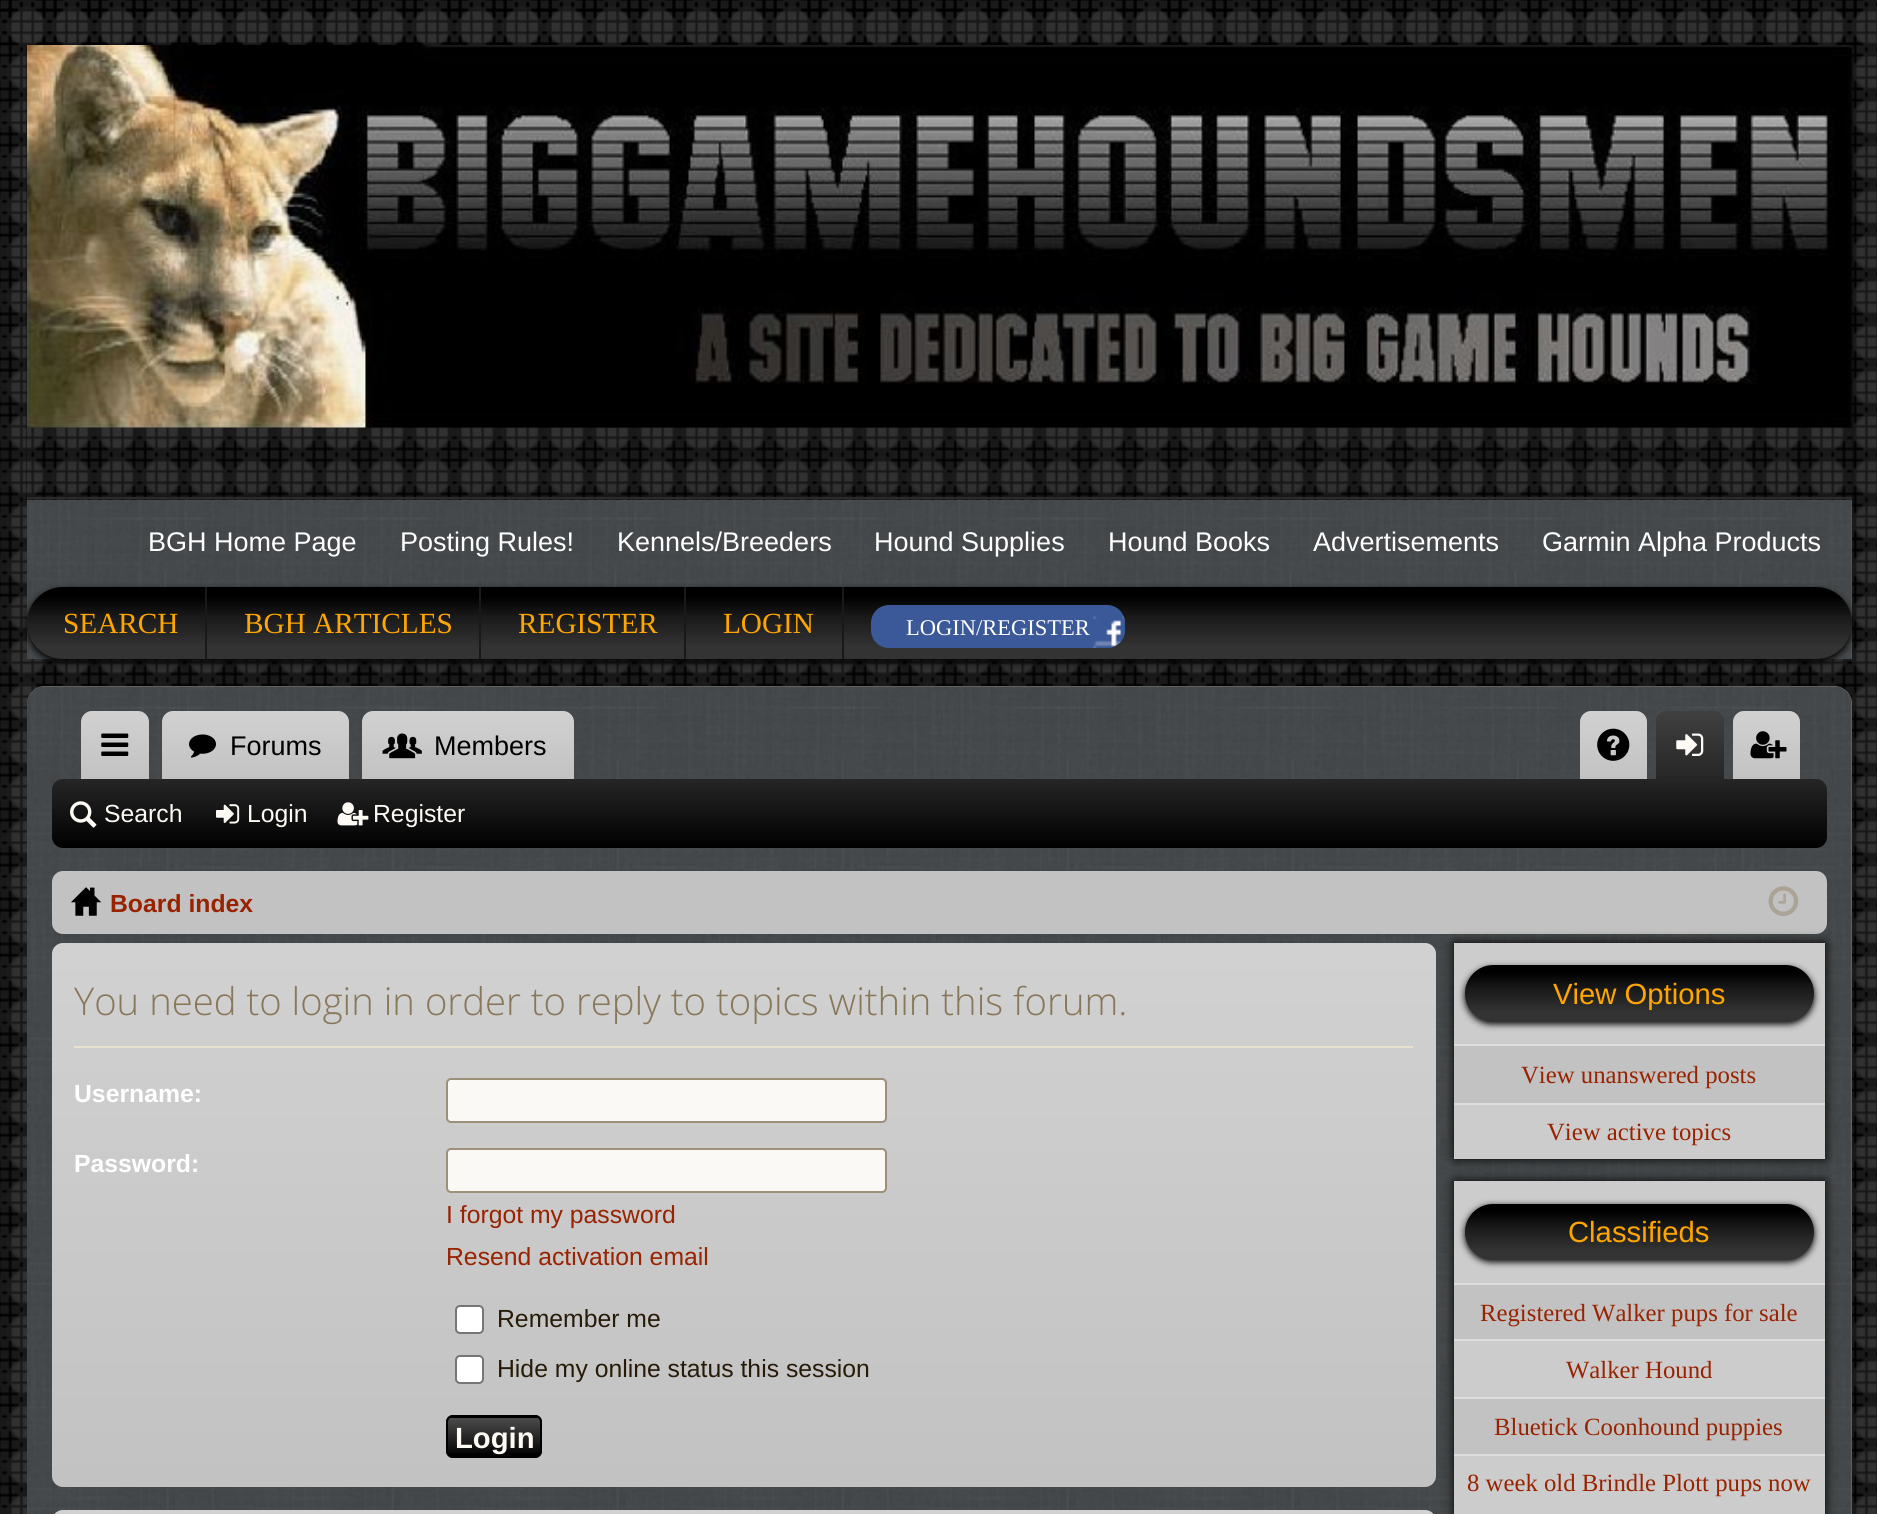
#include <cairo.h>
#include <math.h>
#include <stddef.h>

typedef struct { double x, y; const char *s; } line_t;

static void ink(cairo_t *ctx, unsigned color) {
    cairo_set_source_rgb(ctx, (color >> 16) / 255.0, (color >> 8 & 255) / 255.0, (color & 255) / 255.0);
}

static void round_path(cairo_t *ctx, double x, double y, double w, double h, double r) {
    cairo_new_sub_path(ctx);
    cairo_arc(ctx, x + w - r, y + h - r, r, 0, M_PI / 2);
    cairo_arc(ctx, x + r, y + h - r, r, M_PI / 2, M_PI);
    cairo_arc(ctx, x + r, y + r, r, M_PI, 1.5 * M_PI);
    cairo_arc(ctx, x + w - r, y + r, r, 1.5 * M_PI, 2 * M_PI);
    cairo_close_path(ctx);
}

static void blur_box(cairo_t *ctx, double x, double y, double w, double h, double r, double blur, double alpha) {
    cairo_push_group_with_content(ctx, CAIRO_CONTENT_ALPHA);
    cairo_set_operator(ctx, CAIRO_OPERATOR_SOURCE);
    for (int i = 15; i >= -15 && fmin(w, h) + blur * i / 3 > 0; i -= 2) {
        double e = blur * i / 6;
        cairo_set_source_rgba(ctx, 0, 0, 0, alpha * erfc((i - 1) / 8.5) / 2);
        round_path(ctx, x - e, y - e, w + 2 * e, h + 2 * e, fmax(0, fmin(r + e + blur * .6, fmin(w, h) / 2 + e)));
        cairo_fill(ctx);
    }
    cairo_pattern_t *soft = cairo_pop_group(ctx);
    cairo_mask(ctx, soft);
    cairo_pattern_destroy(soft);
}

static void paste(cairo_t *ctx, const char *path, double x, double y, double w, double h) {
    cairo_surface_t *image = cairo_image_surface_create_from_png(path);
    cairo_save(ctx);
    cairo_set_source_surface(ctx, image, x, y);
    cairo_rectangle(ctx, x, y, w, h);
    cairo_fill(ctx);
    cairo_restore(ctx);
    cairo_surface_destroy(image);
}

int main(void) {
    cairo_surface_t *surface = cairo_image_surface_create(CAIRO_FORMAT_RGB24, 1877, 1514);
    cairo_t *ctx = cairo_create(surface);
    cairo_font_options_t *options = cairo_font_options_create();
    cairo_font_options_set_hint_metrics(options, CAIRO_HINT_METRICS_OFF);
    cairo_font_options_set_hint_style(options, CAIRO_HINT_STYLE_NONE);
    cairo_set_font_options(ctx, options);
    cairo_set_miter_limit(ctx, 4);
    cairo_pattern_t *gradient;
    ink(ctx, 0x191919);
    cairo_paint(ctx);
    paste(ctx, "media/1.png", 0, 0, 1877, 45);
    paste(ctx, "media/2.png", 0, 0, 1877, 1514);
    cairo_save(ctx);
    cairo_set_fill_rule(ctx, CAIRO_FILL_RULE_EVEN_ODD);
    cairo_new_path(ctx);
    cairo_move_to(ctx, 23, 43);
    cairo_line_to(ctx, 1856, 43);
    cairo_line_to(ctx, 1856, 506);
    cairo_line_to(ctx, 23, 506);
    cairo_close_path(ctx);
    cairo_move_to(ctx, 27, 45);
    cairo_line_to(ctx, 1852, 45);
    cairo_line_to(ctx, 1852, 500);
    cairo_line_to(ctx, 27, 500);
    cairo_close_path(ctx);
    cairo_clip(ctx);
    ink(ctx, 0x000000);
    blur_box(ctx, 27, 47, 1825, 455, 0, 1, 1);
    cairo_restore(ctx);
    paste(ctx, "media/3.png", 27, 45, 1825, 383);
    ink(ctx, 0x2B2B2B);
    cairo_rectangle(ctx, 27, 497, 1825, 2);
    cairo_fill(ctx);
    ink(ctx, 0x828282);
    cairo_rectangle(ctx, 27, 500, 1825, 159);
    cairo_fill(ctx);
    paste(ctx, "media/4.png", 27, 499, 1825, 161);
    cairo_select_font_face(ctx, "Liberation Sans", CAIRO_FONT_SLANT_NORMAL, CAIRO_FONT_WEIGHT_NORMAL);
    cairo_set_font_size(ctx, 27);
    ink(ctx, 0xFFFFFF);
    {
        static const line_t items[] = {
            {148, 551, "BGH Home Page"},
            {400, 551, "Posting Rules!"},
            {617, 551, "Kennels/Breeders"},
            {874, 551, "Hound Supplies"},
            {1108, 551, "Hound Books"},
            {1313, 551, "Advertisements"},
            {1542, 551, "Garmin Alpha Products"},
        };
        for (size_t i = 0; i < sizeof items / sizeof *items; i++) {
            cairo_move_to(ctx, items[i].x, items[i].y);
            cairo_show_text(ctx, items[i].s);
        }
    }
    ink(ctx, 0x000000);
    blur_box(ctx, 27, 590, 1825, 72, 36, 3.5, 1);
    gradient = cairo_pattern_create_linear(27, 659, 27, 587);
    cairo_pattern_add_color_stop_rgba(gradient, 0.17, 0.2, 0.2, 0.2, 1);
    cairo_pattern_add_color_stop_rgba(gradient, 0.59, 0.098, 0.098, 0.098, 1);
    cairo_pattern_add_color_stop_rgba(gradient, 0.87, 0, 0, 0, 1);
    cairo_set_source(ctx, gradient);
    cairo_pattern_destroy(gradient);
    round_path(ctx, 27, 587, 1825, 72, 36);
    cairo_fill(ctx);
    ink(ctx, 0x191919);
    cairo_rectangle(ctx, 205, 587, 2, 72);
    cairo_fill(ctx);
    cairo_select_font_face(ctx, "Liberation Serif", CAIRO_FONT_SLANT_NORMAL, CAIRO_FONT_WEIGHT_NORMAL);
    cairo_set_font_size(ctx, 29.25);
    ink(ctx, 0xFFA500);
    cairo_move_to(ctx, 63, 633);
    cairo_show_text(ctx, "SEARCH");
    ink(ctx, 0x191919);
    cairo_rectangle(ctx, 479, 587, 2, 72);
    cairo_fill(ctx);
    ink(ctx, 0xFFA500);
    cairo_move_to(ctx, 244, 633);
    cairo_show_text(ctx, "BGH ARTICLES");
    ink(ctx, 0x191919);
    cairo_rectangle(ctx, 684, 587, 2, 72);
    cairo_fill(ctx);
    ink(ctx, 0xFFA500);
    cairo_move_to(ctx, 518, 633);
    cairo_show_text(ctx, "REGISTER");
    ink(ctx, 0x191919);
    cairo_rectangle(ctx, 842, 587, 2, 72);
    cairo_fill(ctx);
    ink(ctx, 0xFFA500);
    cairo_move_to(ctx, 723, 633);
    cairo_show_text(ctx, "LOGIN");
    ink(ctx, 0x3B5998);
    round_path(ctx, 871, 605, 254, 43, 18);
    cairo_fill(ctx);
    paste(ctx, "media/5.png", 1093, 616, 32, 32);
    cairo_set_font_size(ctx, 22.5);
    ink(ctx, 0xFFFFFF);
    cairo_move_to(ctx, 906, 635);
    cairo_show_text(ctx, "LOGIN/REGISTER");
    ink(ctx, 0x828282);
    round_path(ctx, 27, 686, 1825, 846, 18);
    cairo_fill(ctx);
    paste(ctx, "media/6.png", 27, 686, 1825, 828);
    ink(ctx, 0xC2C2C2);
    cairo_new_path(ctx);
    cairo_move_to(ctx, 92, 711);
    cairo_line_to(ctx, 138, 711);
    cairo_curve_to(ctx, 144, 711, 149, 716, 149, 722);
    cairo_line_to(ctx, 149, 779);
    cairo_line_to(ctx, 81, 779);
    cairo_line_to(ctx, 81, 722);
    cairo_curve_to(ctx, 81, 716, 86, 711, 92, 711);
    cairo_close_path(ctx);
    cairo_fill(ctx);
    gradient = cairo_pattern_create_linear(115, 711, 115, 779);
    cairo_pattern_add_color_stop_rgba(gradient, 0, 1, 1, 1, 0.25);
    cairo_pattern_add_color_stop_rgba(gradient, 1, 1, 1, 1, 0);
    cairo_set_source(ctx, gradient);
    cairo_pattern_destroy(gradient);
    cairo_new_path(ctx);
    cairo_move_to(ctx, 92, 711);
    cairo_line_to(ctx, 138, 711);
    cairo_curve_to(ctx, 144, 711, 149, 716, 149, 722);
    cairo_line_to(ctx, 149, 779);
    cairo_line_to(ctx, 81, 779);
    cairo_line_to(ctx, 81, 722);
    cairo_curve_to(ctx, 81, 716, 86, 711, 92, 711);
    cairo_close_path(ctx);
    cairo_fill(ctx);
    paste(ctx, "media/7.png", 101, 733, 28, 23);
    ink(ctx, 0xC2C2C2);
    cairo_new_path(ctx);
    cairo_move_to(ctx, 173, 711);
    cairo_line_to(ctx, 338, 711);
    cairo_curve_to(ctx, 344, 711, 349, 716, 349, 722);
    cairo_line_to(ctx, 349, 779);
    cairo_line_to(ctx, 162, 779);
    cairo_line_to(ctx, 162, 722);
    cairo_curve_to(ctx, 162, 716, 167, 711, 173, 711);
    cairo_close_path(ctx);
    cairo_fill(ctx);
    gradient = cairo_pattern_create_linear(255, 711, 255, 779);
    cairo_pattern_add_color_stop_rgba(gradient, 0, 1, 1, 1, 0.25);
    cairo_pattern_add_color_stop_rgba(gradient, 1, 1, 1, 1, 0);
    cairo_set_source(ctx, gradient);
    cairo_pattern_destroy(gradient);
    cairo_new_path(ctx);
    cairo_move_to(ctx, 173, 711);
    cairo_line_to(ctx, 338, 711);
    cairo_curve_to(ctx, 344, 711, 349, 716, 349, 722);
    cairo_line_to(ctx, 349, 779);
    cairo_line_to(ctx, 162, 779);
    cairo_line_to(ctx, 162, 722);
    cairo_curve_to(ctx, 162, 716, 167, 711, 173, 711);
    cairo_close_path(ctx);
    cairo_fill(ctx);
    paste(ctx, "media/8.png", 189, 734, 27, 24);
    cairo_select_font_face(ctx, "Liberation Sans", CAIRO_FONT_SLANT_NORMAL, CAIRO_FONT_WEIGHT_NORMAL);
    cairo_set_font_size(ctx, 27);
    ink(ctx, 0x000000);
    cairo_move_to(ctx, 230, 755);
    cairo_show_text(ctx, "Forums");
    ink(ctx, 0xC2C2C2);
    cairo_new_path(ctx);
    cairo_move_to(ctx, 373, 711);
    cairo_line_to(ctx, 563, 711);
    cairo_curve_to(ctx, 569, 711, 574, 716, 574, 722);
    cairo_line_to(ctx, 574, 779);
    cairo_line_to(ctx, 362, 779);
    cairo_line_to(ctx, 362, 722);
    cairo_curve_to(ctx, 362, 716, 367, 711, 373, 711);
    cairo_close_path(ctx);
    cairo_fill(ctx);
    gradient = cairo_pattern_create_linear(468, 711, 468, 779);
    cairo_pattern_add_color_stop_rgba(gradient, 0, 1, 1, 1, 0.25);
    cairo_pattern_add_color_stop_rgba(gradient, 1, 1, 1, 1, 0);
    cairo_set_source(ctx, gradient);
    cairo_pattern_destroy(gradient);
    cairo_new_path(ctx);
    cairo_move_to(ctx, 373, 711);
    cairo_line_to(ctx, 563, 711);
    cairo_curve_to(ctx, 569, 711, 574, 716, 574, 722);
    cairo_line_to(ctx, 574, 779);
    cairo_line_to(ctx, 362, 779);
    cairo_line_to(ctx, 362, 722);
    cairo_curve_to(ctx, 362, 716, 367, 711, 373, 711);
    cairo_close_path(ctx);
    cairo_fill(ctx);
    paste(ctx, "media/9.png", 382, 733, 40, 26);
    ink(ctx, 0x000000);
    cairo_move_to(ctx, 434, 755);
    cairo_show_text(ctx, "Members");
    ink(ctx, 0xC2C2C2);
    cairo_new_path(ctx);
    cairo_move_to(ctx, 1591, 711);
    cairo_line_to(ctx, 1636, 711);
    cairo_curve_to(ctx, 1642, 711, 1647, 716, 1647, 722);
    cairo_line_to(ctx, 1647, 779);
    cairo_line_to(ctx, 1580, 779);
    cairo_line_to(ctx, 1580, 722);
    cairo_curve_to(ctx, 1580, 716, 1585, 711, 1591, 711);
    cairo_close_path(ctx);
    cairo_fill(ctx);
    gradient = cairo_pattern_create_linear(1613, 711, 1613, 779);
    cairo_pattern_add_color_stop_rgba(gradient, 0, 1, 1, 1, 0.25);
    cairo_pattern_add_color_stop_rgba(gradient, 1, 1, 1, 1, 0);
    cairo_set_source(ctx, gradient);
    cairo_pattern_destroy(gradient);
    cairo_new_path(ctx);
    cairo_move_to(ctx, 1591, 711);
    cairo_line_to(ctx, 1636, 711);
    cairo_curve_to(ctx, 1642, 711, 1647, 716, 1647, 722);
    cairo_line_to(ctx, 1647, 779);
    cairo_line_to(ctx, 1580, 779);
    cairo_line_to(ctx, 1580, 722);
    cairo_curve_to(ctx, 1580, 716, 1585, 711, 1591, 711);
    cairo_close_path(ctx);
    cairo_fill(ctx);
    paste(ctx, "media/10.png", 1597, 728, 33, 33);
    ink(ctx, 0x000000);
    cairo_new_path(ctx);
    cairo_move_to(ctx, 1667, 711);
    cairo_line_to(ctx, 1713, 711);
    cairo_curve_to(ctx, 1719, 711, 1724, 716, 1724, 722);
    cairo_line_to(ctx, 1724, 779);
    cairo_line_to(ctx, 1656, 779);
    cairo_line_to(ctx, 1656, 722);
    cairo_curve_to(ctx, 1656, 716, 1661, 711, 1667, 711);
    cairo_close_path(ctx);
    cairo_fill(ctx);
    gradient = cairo_pattern_create_linear(1690, 711, 1690, 779);
    cairo_pattern_add_color_stop_rgba(gradient, 0, 1, 1, 1, 0.25);
    cairo_pattern_add_color_stop_rgba(gradient, 1, 1, 1, 1, 0.15);
    cairo_set_source(ctx, gradient);
    cairo_pattern_destroy(gradient);
    cairo_new_path(ctx);
    cairo_move_to(ctx, 1667, 711);
    cairo_line_to(ctx, 1713, 711);
    cairo_curve_to(ctx, 1719, 711, 1724, 716, 1724, 722);
    cairo_line_to(ctx, 1724, 779);
    cairo_line_to(ctx, 1656, 779);
    cairo_line_to(ctx, 1656, 722);
    cairo_curve_to(ctx, 1656, 716, 1661, 711, 1667, 711);
    cairo_close_path(ctx);
    cairo_fill(ctx);
    paste(ctx, "media/11.png", 1676, 733, 28, 23);
    ink(ctx, 0x000000);
    round_path(ctx, 52, 779, 1775, 69, 11);
    cairo_fill(ctx);
    gradient = cairo_pattern_create_linear(939, 778, 939, 848);
    cairo_pattern_add_color_stop_rgba(gradient, 0, 1, 1, 1, 0.15);
    cairo_pattern_add_color_stop_rgba(gradient, 1, 1, 1, 1, 0);
    cairo_set_source(ctx, gradient);
    cairo_pattern_destroy(gradient);
    round_path(ctx, 52, 779, 1775, 69, 11);
    cairo_fill(ctx);
    ink(ctx, 0x000000);
    cairo_new_path(ctx);
    cairo_move_to(ctx, 1661, 776);
    cairo_line_to(ctx, 1719, 776);
    cairo_curve_to(ctx, 1722, 776, 1724, 778, 1724, 781);
    cairo_line_to(ctx, 1656, 781);
    cairo_curve_to(ctx, 1656, 778, 1658, 776, 1661, 776);
    cairo_close_path(ctx);
    cairo_fill(ctx);
    cairo_set_source_rgba(ctx, 1, 1, 1, 0.15);
    cairo_new_path(ctx);
    cairo_move_to(ctx, 1661, 776);
    cairo_line_to(ctx, 1719, 776);
    cairo_curve_to(ctx, 1722, 776, 1724, 778, 1724, 781);
    cairo_line_to(ctx, 1656, 781);
    cairo_curve_to(ctx, 1656, 778, 1658, 776, 1661, 776);
    cairo_close_path(ctx);
    cairo_fill(ctx);
    ink(ctx, 0xC2C2C2);
    cairo_new_path(ctx);
    cairo_move_to(ctx, 1744, 711);
    cairo_line_to(ctx, 1789, 711);
    cairo_curve_to(ctx, 1795, 711, 1800, 716, 1800, 722);
    cairo_line_to(ctx, 1800, 779);
    cairo_line_to(ctx, 1733, 779);
    cairo_line_to(ctx, 1733, 722);
    cairo_curve_to(ctx, 1733, 716, 1738, 711, 1744, 711);
    cairo_close_path(ctx);
    cairo_fill(ctx);
    gradient = cairo_pattern_create_linear(1766, 711, 1766, 779);
    cairo_pattern_add_color_stop_rgba(gradient, 0, 1, 1, 1, 0.25);
    cairo_pattern_add_color_stop_rgba(gradient, 1, 1, 1, 1, 0);
    cairo_set_source(ctx, gradient);
    cairo_pattern_destroy(gradient);
    cairo_new_path(ctx);
    cairo_move_to(ctx, 1744, 711);
    cairo_line_to(ctx, 1789, 711);
    cairo_curve_to(ctx, 1795, 711, 1800, 716, 1800, 722);
    cairo_line_to(ctx, 1800, 779);
    cairo_line_to(ctx, 1733, 779);
    cairo_line_to(ctx, 1733, 722);
    cairo_curve_to(ctx, 1733, 716, 1738, 711, 1744, 711);
    cairo_close_path(ctx);
    cairo_fill(ctx);
    paste(ctx, "media/12.png", 1750, 731, 37, 28);
    paste(ctx, "media/13.png", 70, 801, 27, 27);
    cairo_set_font_size(ctx, 24.75);
    ink(ctx, 0xFEFBF5);
    cairo_move_to(ctx, 104, 822);
    cairo_show_text(ctx, "Search");
    paste(ctx, "media/14.png", 216, 804, 24, 20);
    cairo_move_to(ctx, 247, 822);
    cairo_show_text(ctx, "Login");
    paste(ctx, "media/15.png", 337, 802, 32, 24);
    cairo_move_to(ctx, 373, 822);
    cairo_show_text(ctx, "Register");
    ink(ctx, 0xC2C2C2);
    round_path(ctx, 52, 871, 1775, 63, 11);
    cairo_fill(ctx);
    paste(ctx, "media/16.png", 71, 887, 31, 29);
    cairo_select_font_face(ctx, "Liberation Sans", CAIRO_FONT_SLANT_NORMAL, CAIRO_FONT_WEIGHT_BOLD);
    ink(ctx, 0x992200);
    cairo_move_to(ctx, 110, 912);
    cairo_show_text(ctx, "Board index");
    paste(ctx, "media/17.png", 1768, 886, 31, 30);
    ink(ctx, 0xC2C2C2);
    round_path(ctx, 52, 943, 1384, 544, 11);
    cairo_fill(ctx);
    gradient = cairo_pattern_create_linear(744, 943, 744, 1487);
    cairo_pattern_add_color_stop_rgba(gradient, 0, 1, 1, 1, 0.25);
    cairo_pattern_add_color_stop_rgba(gradient, 1, 1, 1, 1, 0);
    cairo_set_source(ctx, gradient);
    cairo_pattern_destroy(gradient);
    round_path(ctx, 52, 943, 1384, 544, 11);
    cairo_fill(ctx);
    ink(ctx, 0xE8E1CF);
    cairo_rectangle(ctx, 74, 1046, 1339, 2);
    cairo_fill(ctx);
    cairo_select_font_face(ctx, "Open Sans Light", CAIRO_FONT_SLANT_NORMAL, CAIRO_FONT_WEIGHT_NORMAL);
    cairo_set_font_size(ctx, 38.25);
    ink(ctx, 0x897759);
    cairo_move_to(ctx, 74, 1015);
    cairo_show_text(ctx, "You need to login in order to reply to topics within this forum.");
    cairo_select_font_face(ctx, "Liberation Sans", CAIRO_FONT_SLANT_NORMAL, CAIRO_FONT_WEIGHT_BOLD);
    cairo_set_font_size(ctx, 24.75);
    ink(ctx, 0xFFFFFF);
    cairo_move_to(ctx, 74, 1102);
    cairo_show_text(ctx, "Username:");
    ink(ctx, 0xFAF9F5);
    round_path(ctx, 447, 1079, 439, 43, 4);
    cairo_fill_preserve(ctx);
    ink(ctx, 0x9D8F78);
    cairo_stroke(ctx);
    ink(ctx, 0xFFFFFF);
    cairo_move_to(ctx, 74, 1172);
    cairo_show_text(ctx, "Password:");
    ink(ctx, 0xFAF9F5);
    round_path(ctx, 447, 1149, 439, 43, 4);
    cairo_fill_preserve(ctx);
    ink(ctx, 0x9D8F78);
    cairo_stroke(ctx);
    cairo_select_font_face(ctx, "Liberation Sans", CAIRO_FONT_SLANT_NORMAL, CAIRO_FONT_WEIGHT_NORMAL);
    ink(ctx, 0x992200);
    cairo_move_to(ctx, 446, 1223);
    cairo_show_text(ctx, "I forgot my password");
    cairo_move_to(ctx, 446, 1265);
    cairo_show_text(ctx, "Resend activation email");
    ink(ctx, 0xFFFFFF);
    round_path(ctx, 456, 1306, 27, 27, 4);
    cairo_fill_preserve(ctx);
    ink(ctx, 0x767676);
    cairo_stroke(ctx);
    ink(ctx, 0x271B08);
    cairo_move_to(ctx, 497, 1327);
    cairo_show_text(ctx, "Remember me");
    ink(ctx, 0xFFFFFF);
    round_path(ctx, 456, 1356, 27, 27, 4);
    cairo_fill_preserve(ctx);
    ink(ctx, 0x767676);
    cairo_stroke(ctx);
    ink(ctx, 0x271B08);
    cairo_move_to(ctx, 497, 1377);
    cairo_show_text(ctx, "Hide my online status this session");
    ink(ctx, 0x000000);
    round_path(ctx, 446, 1415, 96, 43, 7);
    cairo_fill(ctx);
    cairo_save(ctx);
    round_path(ctx, 446, 1415, 96, 43, 7);
    cairo_clip(ctx);
    gradient = cairo_pattern_create_linear(494, 1418, 494, 1456);
    cairo_pattern_add_color_stop_rgba(gradient, 0, 1, 1, 1, 0.3);
    cairo_pattern_add_color_stop_rgba(gradient, 1, 1, 1, 1, 0);
    cairo_set_source(ctx, gradient);
    cairo_pattern_destroy(gradient);
    cairo_rectangle(ctx, 446, 1418, 96, 35);
    cairo_fill(ctx);
    cairo_restore(ctx);
    round_path(ctx, 447, 1416, 94, 41, 6);
    cairo_stroke(ctx);
    cairo_select_font_face(ctx, "Liberation Sans", CAIRO_FONT_SLANT_NORMAL, CAIRO_FONT_WEIGHT_BOLD);
    cairo_set_font_size(ctx, 29.25);
    ink(ctx, 0xFEFBF5);
    cairo_move_to(ctx, 455, 1448);
    cairo_show_text(ctx, "Login");
    ink(ctx, 0xC2C2C2);
    round_path(ctx, 52, 1510, 1384, 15, 11);
    cairo_fill(ctx);
    gradient = cairo_pattern_create_linear(744, 1510, 744, 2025);
    cairo_pattern_add_color_stop_rgba(gradient, 0, 1, 1, 1, 0.25);
    cairo_pattern_add_color_stop_rgba(gradient, 1, 1, 1, 1, 0);
    cairo_set_source(ctx, gradient);
    cairo_pattern_destroy(gradient);
    round_path(ctx, 52, 1510, 1384, 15, 11);
    cairo_fill(ctx);
    ink(ctx, 0x000000);
    blur_box(ctx, 1454, 943, 371, 216, 0, 5.5, 1);
    ink(ctx, 0xCCCCCC);
    cairo_rectangle(ctx, 1454, 943, 371, 216);
    cairo_fill(ctx);
    ink(ctx, 0x000000);
    blur_box(ctx, 1465, 968, 349, 56, 28, 3.5, 1);
    gradient = cairo_pattern_create_linear(1465, 1022, 1465, 965);
    cairo_pattern_add_color_stop_rgba(gradient, 0.17, 0.2, 0.2, 0.2, 1);
    cairo_pattern_add_color_stop_rgba(gradient, 0.59, 0.098, 0.098, 0.098, 1);
    cairo_pattern_add_color_stop_rgba(gradient, 0.87, 0, 0, 0, 1);
    cairo_set_source(ctx, gradient);
    cairo_pattern_destroy(gradient);
    round_path(ctx, 1465, 965, 349, 57, 28.5);
    cairo_fill(ctx);
    cairo_select_font_face(ctx, "Liberation Sans", CAIRO_FONT_SLANT_NORMAL, CAIRO_FONT_WEIGHT_NORMAL);
    ink(ctx, 0xFFA500);
    cairo_move_to(ctx, 1553, 1004);
    cairo_show_text(ctx, "View Options");
    ink(ctx, 0xC2C2C2);
    cairo_rectangle(ctx, 1454, 1046, 371, 57);
    cairo_fill(ctx);
    ink(ctx, 0xDDDDDD);
    cairo_rectangle(ctx, 1454, 1044, 371, 2);
    cairo_fill(ctx);
    cairo_select_font_face(ctx, "Liberation Serif", CAIRO_FONT_SLANT_NORMAL, CAIRO_FONT_WEIGHT_NORMAL);
    cairo_set_font_size(ctx, 24.75);
    ink(ctx, 0x992200);
    cairo_move_to(ctx, 1521, 1083);
    cairo_show_text(ctx, "View unanswered posts");
    ink(ctx, 0xDDDDDD);
    cairo_rectangle(ctx, 1454, 1103, 371, 2);
    cairo_fill(ctx);
    ink(ctx, 0x992200);
    cairo_move_to(ctx, 1547, 1140);
    cairo_show_text(ctx, "View active topics");
    ink(ctx, 0x000000);
    blur_box(ctx, 1454, 1181, 371, 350, 0, 5.5, 1);
    ink(ctx, 0xCCCCCC);
    cairo_rectangle(ctx, 1454, 1181, 371, 333);
    cairo_fill(ctx);
    ink(ctx, 0x000000);
    blur_box(ctx, 1465, 1206, 349, 56, 28, 3.5, 1);
    gradient = cairo_pattern_create_linear(1465, 1260, 1465, 1204);
    cairo_pattern_add_color_stop_rgba(gradient, 0.17, 0.2, 0.2, 0.2, 1);
    cairo_pattern_add_color_stop_rgba(gradient, 0.59, 0.098, 0.098, 0.098, 1);
    cairo_pattern_add_color_stop_rgba(gradient, 0.87, 0, 0, 0, 1);
    cairo_set_source(ctx, gradient);
    cairo_pattern_destroy(gradient);
    round_path(ctx, 1465, 1204, 349, 56, 28);
    cairo_fill(ctx);
    cairo_select_font_face(ctx, "Liberation Sans", CAIRO_FONT_SLANT_NORMAL, CAIRO_FONT_WEIGHT_NORMAL);
    cairo_set_font_size(ctx, 29.25);
    ink(ctx, 0xFFA500);
    cairo_move_to(ctx, 1568, 1242);
    cairo_show_text(ctx, "Classifieds");
    ink(ctx, 0xC2C2C2);
    cairo_rectangle(ctx, 1454, 1285, 371, 54);
    cairo_fill(ctx);
    ink(ctx, 0xDDDDDD);
    cairo_rectangle(ctx, 1454, 1283, 371, 2);
    cairo_fill(ctx);
    cairo_select_font_face(ctx, "Liberation Serif", CAIRO_FONT_SLANT_NORMAL, CAIRO_FONT_WEIGHT_NORMAL);
    cairo_set_font_size(ctx, 24.75);
    ink(ctx, 0x992200);
    cairo_move_to(ctx, 1480, 1321);
    cairo_show_text(ctx, "Registered Walker pups for sale");
    ink(ctx, 0xDDDDDD);
    cairo_rectangle(ctx, 1454, 1339, 371, 2);
    cairo_fill(ctx);
    ink(ctx, 0x992200);
    cairo_move_to(ctx, 1566, 1378);
    cairo_show_text(ctx, "Walker Hound");
    ink(ctx, 0xC2C2C2);
    cairo_rectangle(ctx, 1454, 1399, 371, 55);
    cairo_fill(ctx);
    ink(ctx, 0xDDDDDD);
    cairo_rectangle(ctx, 1454, 1397, 371, 2);
    cairo_fill(ctx);
    ink(ctx, 0x992200);
    cairo_move_to(ctx, 1494, 1435);
    cairo_show_text(ctx, "Bluetick Coonhound puppies");
    ink(ctx, 0xDDDDDD);
    cairo_rectangle(ctx, 1454, 1454, 371, 2);
    cairo_fill(ctx);
    ink(ctx, 0x992200);
    cairo_move_to(ctx, 1467, 1491);
    cairo_show_text(ctx, "8 week old Brindle Plott pups now");
    cairo_surface_write_to_png(surface, "image.png");
    cairo_font_options_destroy(options);
    cairo_destroy(ctx);
    cairo_surface_destroy(surface);
    return 0;
}
